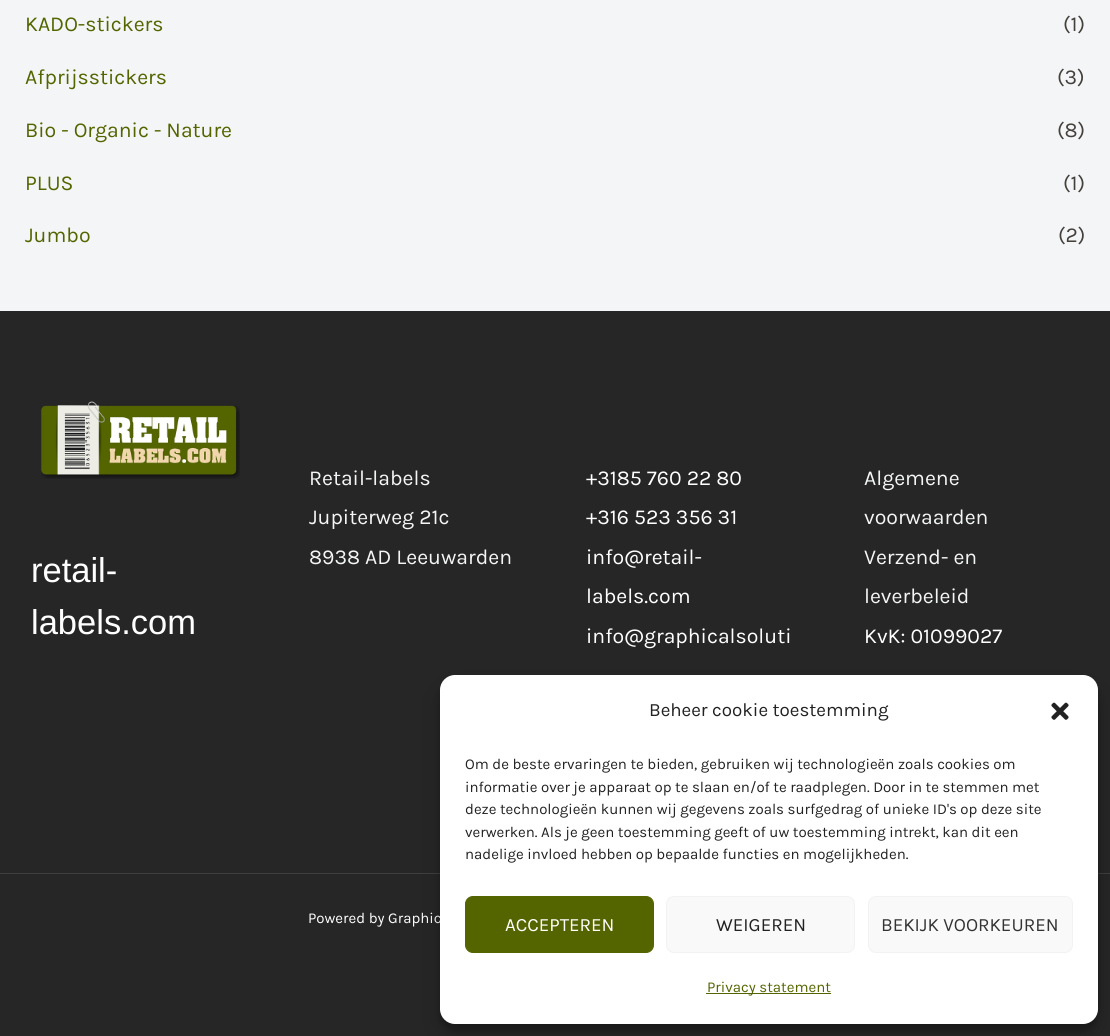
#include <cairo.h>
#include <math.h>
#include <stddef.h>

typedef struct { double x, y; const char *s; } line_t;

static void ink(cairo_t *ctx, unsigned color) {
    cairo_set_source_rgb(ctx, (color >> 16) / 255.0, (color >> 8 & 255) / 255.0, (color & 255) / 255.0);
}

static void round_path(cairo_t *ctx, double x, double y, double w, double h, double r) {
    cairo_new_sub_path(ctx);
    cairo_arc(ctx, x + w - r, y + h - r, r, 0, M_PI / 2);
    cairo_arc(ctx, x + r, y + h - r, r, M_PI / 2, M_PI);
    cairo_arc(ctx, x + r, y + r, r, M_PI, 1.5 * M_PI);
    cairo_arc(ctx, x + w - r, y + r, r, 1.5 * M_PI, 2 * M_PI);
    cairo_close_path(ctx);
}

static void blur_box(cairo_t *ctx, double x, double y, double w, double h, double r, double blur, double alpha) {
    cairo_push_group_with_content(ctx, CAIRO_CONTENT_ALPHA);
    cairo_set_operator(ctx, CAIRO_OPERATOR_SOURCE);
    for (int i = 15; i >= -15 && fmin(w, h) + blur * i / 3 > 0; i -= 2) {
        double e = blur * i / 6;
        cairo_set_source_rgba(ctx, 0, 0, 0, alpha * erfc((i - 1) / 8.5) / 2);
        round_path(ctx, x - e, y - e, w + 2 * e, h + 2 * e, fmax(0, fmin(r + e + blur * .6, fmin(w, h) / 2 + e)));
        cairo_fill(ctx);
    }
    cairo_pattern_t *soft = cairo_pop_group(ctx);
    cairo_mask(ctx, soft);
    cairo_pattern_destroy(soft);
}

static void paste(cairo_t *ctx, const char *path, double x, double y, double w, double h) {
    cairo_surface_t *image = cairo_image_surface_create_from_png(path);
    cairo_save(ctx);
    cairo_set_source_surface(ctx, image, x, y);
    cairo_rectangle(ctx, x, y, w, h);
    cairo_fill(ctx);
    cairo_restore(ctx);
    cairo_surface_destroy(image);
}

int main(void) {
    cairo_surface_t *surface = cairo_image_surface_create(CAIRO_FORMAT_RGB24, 1110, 1036);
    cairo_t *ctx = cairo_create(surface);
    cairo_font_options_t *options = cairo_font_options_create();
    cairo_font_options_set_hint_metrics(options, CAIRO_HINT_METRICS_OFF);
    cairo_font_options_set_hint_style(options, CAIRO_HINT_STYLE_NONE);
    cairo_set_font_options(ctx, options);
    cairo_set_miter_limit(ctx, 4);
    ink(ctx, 0xF4F5F6);
    cairo_paint(ctx);
    cairo_select_font_face(ctx, "Karla", CAIRO_FONT_SLANT_NORMAL, CAIRO_FONT_WEIGHT_NORMAL);
    cairo_set_font_size(ctx, 21.25);
    ink(ctx, 0x546500);
    cairo_move_to(ctx, 25, 31);
    cairo_show_text(ctx, "KADO-stickers");
    ink(ctx, 0x44403C);
    cairo_move_to(ctx, 1063, 31);
    cairo_show_text(ctx, "(1)");
    ink(ctx, 0x546500);
    cairo_move_to(ctx, 25, 84);
    cairo_show_text(ctx, "Afprijsstickers");
    ink(ctx, 0x44403C);
    cairo_move_to(ctx, 1057, 84);
    cairo_show_text(ctx, "(3)");
    ink(ctx, 0x546500);
    cairo_move_to(ctx, 25, 137);
    cairo_show_text(ctx, "Bio - Organic - Nature");
    ink(ctx, 0x44403C);
    cairo_move_to(ctx, 1057, 137);
    cairo_show_text(ctx, "(8)");
    ink(ctx, 0x546500);
    cairo_move_to(ctx, 25, 190);
    cairo_show_text(ctx, "PLUS");
    ink(ctx, 0x44403C);
    cairo_move_to(ctx, 1063, 190);
    cairo_show_text(ctx, "(1)");
    ink(ctx, 0x546500);
    cairo_move_to(ctx, 25, 242);
    cairo_show_text(ctx, "Jumbo");
    ink(ctx, 0x44403C);
    cairo_move_to(ctx, 1058, 242);
    cairo_show_text(ctx, "(2)");
    ink(ctx, 0x262626);
    cairo_rectangle(ctx, 0, 311, 1110, 725);
    cairo_fill(ctx);
    paste(ctx, "media/1.png", 41, 401, 199, 78);
    cairo_select_font_face(ctx, "Liberation Sans", CAIRO_FONT_SLANT_NORMAL, CAIRO_FONT_WEIGHT_NORMAL);
    cairo_set_font_size(ctx, 34.5);
    ink(ctx, 0xFFFFFF);
    cairo_move_to(ctx, 31, 582);
    cairo_show_text(ctx, "retail-");
    cairo_move_to(ctx, 31, 634);
    cairo_show_text(ctx, "labels.com");
    cairo_select_font_face(ctx, "Karla", CAIRO_FONT_SLANT_NORMAL, CAIRO_FONT_WEIGHT_NORMAL);
    cairo_set_font_size(ctx, 21.25);
    ink(ctx, 0xF4F5F6);
    {
        static const line_t items[] = {
            {309, 485, "Retail-labels"},
            {309, 524, "Jupiterweg 21c"},
            {309, 564, "8938 AD Leeuwarden"},
        };
        for (size_t i = 0; i < sizeof items / sizeof *items; i++) {
            cairo_move_to(ctx, items[i].x, items[i].y);
            cairo_show_text(ctx, items[i].s);
        }
    }
    ink(ctx, 0xFFFFFF);
    {
        static const line_t items[] = {
            {586, 485, "+3185 760 22 80"},
            {586, 524, "+316 523 356 31"},
            {586, 564, "info@retail-"},
            {586, 603, "labels.com"},
            {586, 643, "info@graphicalsoluti"},
        };
        for (size_t i = 0; i < sizeof items / sizeof *items; i++) {
            cairo_move_to(ctx, items[i].x, items[i].y);
            cairo_show_text(ctx, items[i].s);
        }
    }
    ink(ctx, 0xF4F5F6);
    {
        static const line_t items[] = {
            {864, 485, "Algemene"},
            {864, 524, "voorwaarden"},
            {864, 564, "Verzend- en"},
            {864, 603, "leverbeleid"},
        };
        for (size_t i = 0; i < sizeof items / sizeof *items; i++) {
            cairo_move_to(ctx, items[i].x, items[i].y);
            cairo_show_text(ctx, items[i].s);
        }
    }
    ink(ctx, 0xFFFFFF);
    cairo_move_to(ctx, 864, 643);
    cairo_show_text(ctx, "KvK: 01099027");
    ink(ctx, 0x3F3F3F);
    cairo_rectangle(ctx, 0, 873, 1110, 1);
    cairo_fill(ctx);
    cairo_set_font_size(ctx, 15);
    ink(ctx, 0xFFFFFF);
    cairo_move_to(ctx, 308, 923);
    cairo_show_text(ctx, "Powered by Graphic");
    ink(ctx, 0x000000);
    blur_box(ctx, 440, 683, 658, 348, 15, 4, 0.23);
    blur_box(ctx, 440, 688, 658, 348, 15, 12.5, 0.19);
    ink(ctx, 0xFFFFFF);
    round_path(ctx, 440, 675, 658, 349, 15);
    cairo_fill(ctx);
    cairo_set_font_size(ctx, 18.75);
    ink(ctx, 0x222222);
    cairo_move_to(ctx, 649, 716);
    cairo_show_text(ctx, "Beheer cookie toestemming");
    paste(ctx, "media/2.png", 1051, 702, 18, 18);
    cairo_set_font_size(ctx, 15);
    {
        static const line_t items[] = {
            {465, 769, "Om de beste ervaringen te bieden, gebruiken wij technologieën zoals cookies om"},
            {465, 792, "informatie over je apparaat op te slaan en/of te raadplegen. Door in te stemmen met"},
            {465, 814, "deze technologieën kunnen wij gegevens zoals surfgedrag of unieke ID's op deze site"},
            {465, 837, "verwerken. Als je geen toestemming geeft of uw toestemming intrekt, kan dit een"},
            {465, 859, "nadelige invloed hebben op bepaalde functies en mogelijkheden."},
        };
        for (size_t i = 0; i < sizeof items / sizeof *items; i++) {
            cairo_move_to(ctx, items[i].x, items[i].y);
            cairo_show_text(ctx, items[i].s);
        }
    }
    ink(ctx, 0x546500);
    round_path(ctx, 465.5, 896.5, 188, 56, 7.5);
    cairo_fill_preserve(ctx);
    cairo_set_line_width(ctx, 1);
    cairo_stroke(ctx);
    cairo_set_font_size(ctx, 18.75);
    ink(ctx, 0xFFFFFF);
    cairo_move_to(ctx, 505, 931);
    cairo_show_text(ctx, "ACCEPTEREN");
    ink(ctx, 0xF9F9F9);
    round_path(ctx, 666.5, 896.5, 188, 56, 7.5);
    cairo_fill_preserve(ctx);
    ink(ctx, 0xF2F2F2);
    cairo_stroke(ctx);
    ink(ctx, 0x222222);
    cairo_move_to(ctx, 716, 931);
    cairo_show_text(ctx, "WEIGEREN");
    ink(ctx, 0xF9F9F9);
    round_path(ctx, 868.5, 896.5, 204, 56, 7.5);
    cairo_fill_preserve(ctx);
    ink(ctx, 0xF2F2F2);
    cairo_stroke(ctx);
    ink(ctx, 0x333333);
    cairo_move_to(ctx, 881, 931);
    cairo_show_text(ctx, "BEKIJK VOORKEUREN");
    ink(ctx, 0x546500);
    cairo_rectangle(ctx, 706, 993, 125, 1);
    cairo_fill(ctx);
    cairo_set_font_size(ctx, 15);
    cairo_move_to(ctx, 707, 992);
    cairo_show_text(ctx, "Privacy statement");
    cairo_surface_write_to_png(surface, "image.png");
    cairo_font_options_destroy(options);
    cairo_destroy(ctx);
    cairo_surface_destroy(surface);
    return 0;
}
